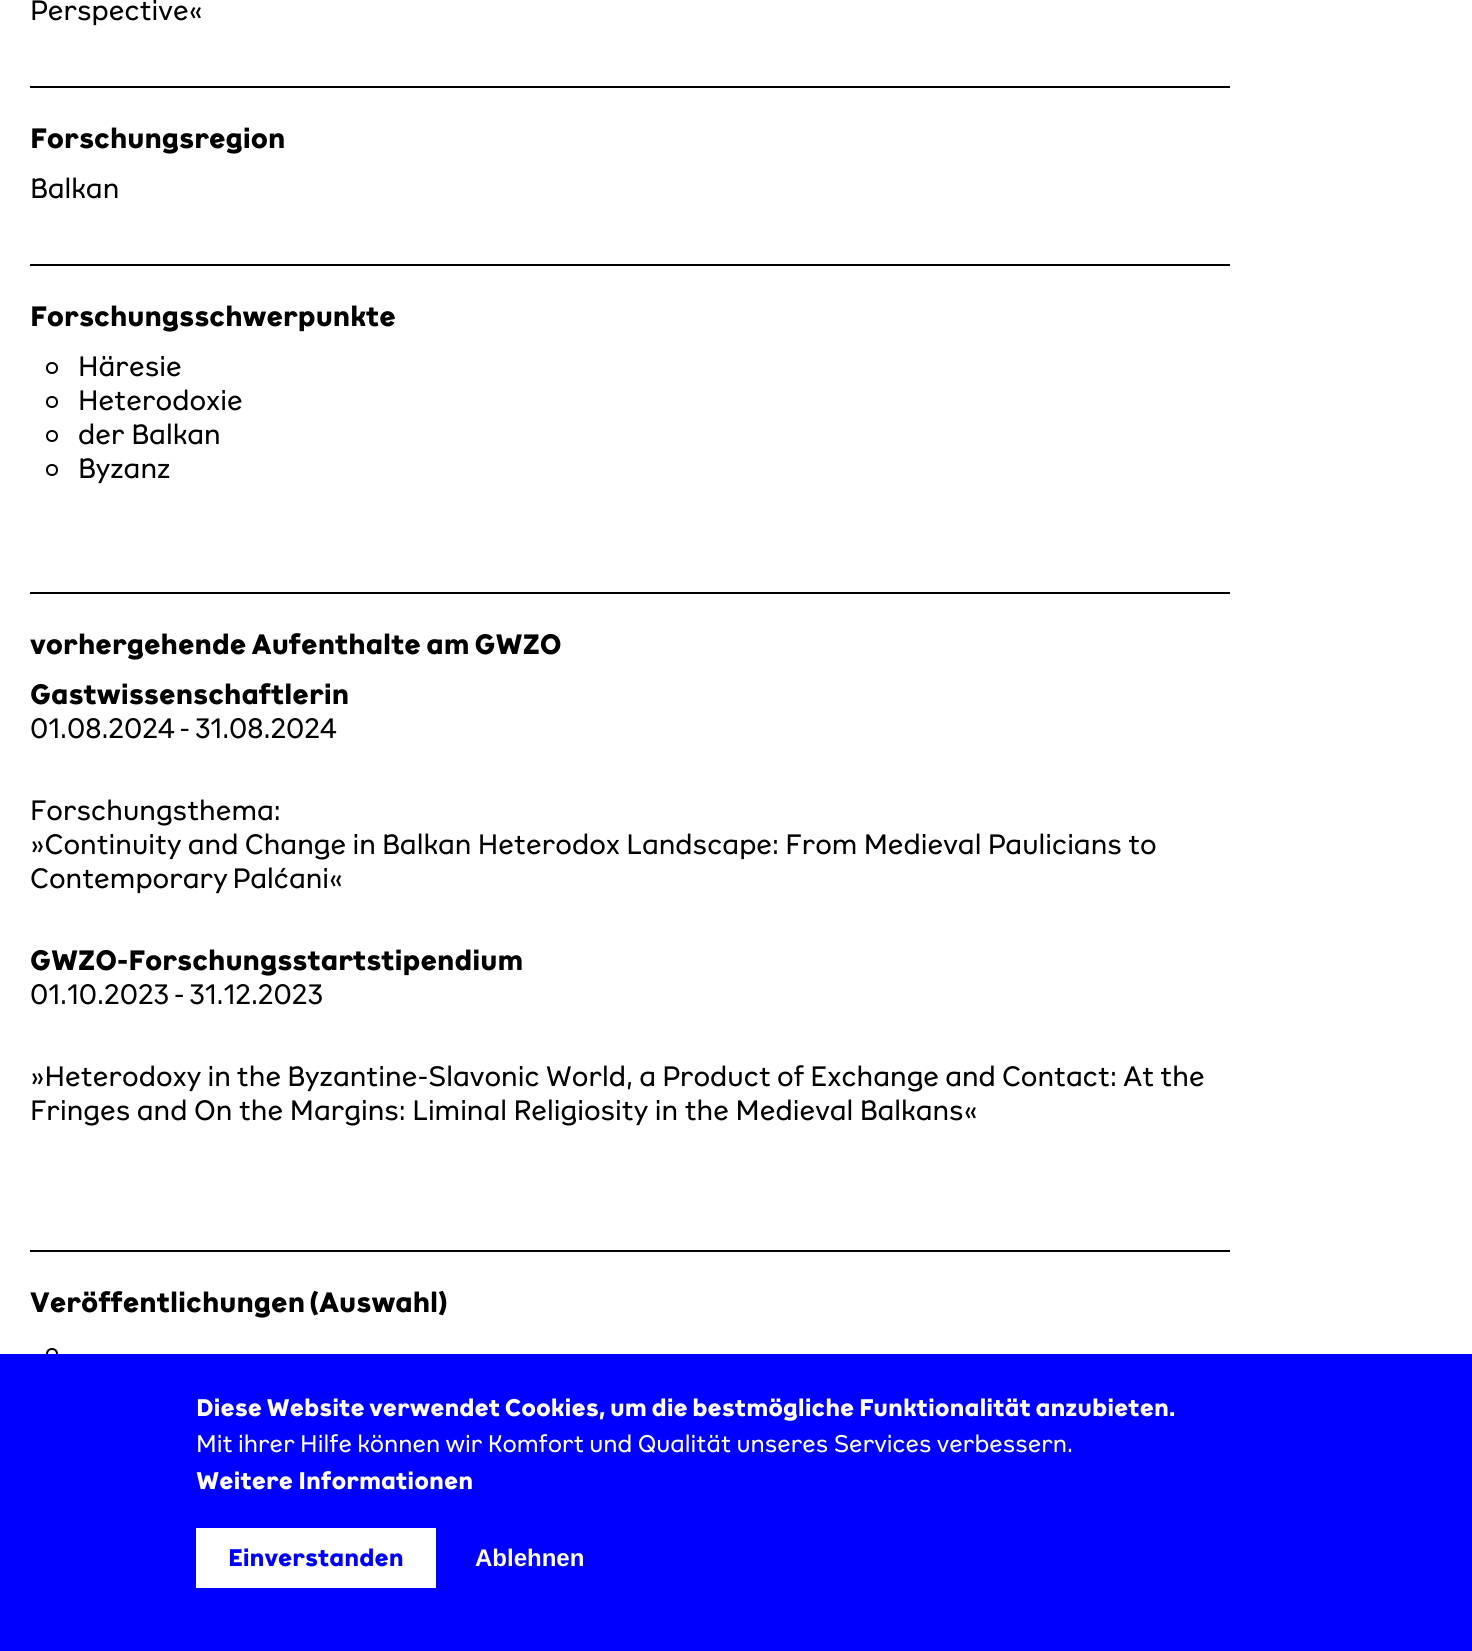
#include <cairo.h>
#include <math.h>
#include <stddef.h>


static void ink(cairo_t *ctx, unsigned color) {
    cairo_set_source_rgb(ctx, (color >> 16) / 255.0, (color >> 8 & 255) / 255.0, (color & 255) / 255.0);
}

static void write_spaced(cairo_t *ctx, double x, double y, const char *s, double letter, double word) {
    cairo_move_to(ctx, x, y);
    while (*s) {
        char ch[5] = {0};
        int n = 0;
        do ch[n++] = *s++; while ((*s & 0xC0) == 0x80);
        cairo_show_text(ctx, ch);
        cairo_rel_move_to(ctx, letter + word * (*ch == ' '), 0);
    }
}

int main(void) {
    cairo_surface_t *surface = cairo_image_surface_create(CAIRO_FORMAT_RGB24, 1472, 1651);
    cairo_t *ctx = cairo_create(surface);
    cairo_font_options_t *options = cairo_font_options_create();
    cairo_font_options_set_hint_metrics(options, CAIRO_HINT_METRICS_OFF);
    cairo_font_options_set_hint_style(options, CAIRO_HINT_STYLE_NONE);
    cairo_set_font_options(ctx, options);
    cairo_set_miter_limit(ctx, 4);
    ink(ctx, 0xFFFFFF);
    cairo_paint(ctx);
    cairo_select_font_face(ctx, "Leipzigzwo", CAIRO_FONT_SLANT_NORMAL, CAIRO_FONT_WEIGHT_NORMAL);
    cairo_set_font_size(ctx, 28);
    ink(ctx, 0x000000);
    cairo_move_to(ctx, 30, 20);
    cairo_show_text(ctx, "Perspective«");
    cairo_rectangle(ctx, 30, 86, 1200, 2);
    cairo_fill(ctx);
    cairo_select_font_face(ctx, "Leipzigzwo", CAIRO_FONT_SLANT_NORMAL, CAIRO_FONT_WEIGHT_BOLD);
    cairo_move_to(ctx, 30, 148);
    cairo_show_text(ctx, "Forschungsregion");
    cairo_select_font_face(ctx, "Leipzigzwo", CAIRO_FONT_SLANT_NORMAL, CAIRO_FONT_WEIGHT_NORMAL);
    cairo_move_to(ctx, 30, 198);
    cairo_show_text(ctx, "Balkan");
    cairo_rectangle(ctx, 30, 264, 1200, 2);
    cairo_fill(ctx);
    cairo_select_font_face(ctx, "Leipzigzwo", CAIRO_FONT_SLANT_NORMAL, CAIRO_FONT_WEIGHT_BOLD);
    cairo_move_to(ctx, 30, 326);
    cairo_show_text(ctx, "Forschungsschwerpunkte");
    cairo_new_path(ctx);
    cairo_arc(ctx, 52, 368, 5, 0, 2 * M_PI);
    cairo_stroke(ctx);
    cairo_select_font_face(ctx, "Leipzigzwo", CAIRO_FONT_SLANT_NORMAL, CAIRO_FONT_WEIGHT_NORMAL);
    cairo_move_to(ctx, 78, 376);
    cairo_show_text(ctx, "Häresie");
    cairo_new_path(ctx);
    cairo_arc(ctx, 52, 402, 5, 0, 2 * M_PI);
    cairo_stroke(ctx);
    cairo_move_to(ctx, 78, 410);
    cairo_show_text(ctx, "Heterodoxie");
    cairo_new_path(ctx);
    cairo_arc(ctx, 52, 436, 5, 0, 2 * M_PI);
    cairo_stroke(ctx);
    cairo_move_to(ctx, 78, 444);
    cairo_show_text(ctx, "der Balkan");
    cairo_new_path(ctx);
    cairo_arc(ctx, 52, 470, 5, 0, 2 * M_PI);
    cairo_stroke(ctx);
    cairo_move_to(ctx, 78, 478);
    cairo_show_text(ctx, "Byzanz");
    cairo_rectangle(ctx, 30, 592, 1200, 2);
    cairo_fill(ctx);
    cairo_select_font_face(ctx, "Leipzigzwo", CAIRO_FONT_SLANT_NORMAL, CAIRO_FONT_WEIGHT_BOLD);
    write_spaced(ctx, 30, 654, "vorhergehende Aufenthalte am GWZO", 0, -1);
    cairo_move_to(ctx, 30, 704);
    cairo_show_text(ctx, "Gastwissenschaftlerin");
    cairo_select_font_face(ctx, "Leipzigzwo", CAIRO_FONT_SLANT_NORMAL, CAIRO_FONT_WEIGHT_NORMAL);
    write_spaced(ctx, 30, 738, "01.08.2024 - 31.08.2024", 0, -2);
    cairo_move_to(ctx, 30, 820);
    cairo_show_text(ctx, "Forschungsthema:");
    write_spaced(ctx, 30, 854, "»Continuity and Change in Balkan Heterodox Landscape: From Medieval Paulicians to", 0, -0.5);
    write_spaced(ctx, 30, 888, "Contemporary Palćani«", 0, -2);
    cairo_select_font_face(ctx, "Leipzigzwo", CAIRO_FONT_SLANT_NORMAL, CAIRO_FONT_WEIGHT_BOLD);
    cairo_move_to(ctx, 30, 970);
    cairo_show_text(ctx, "GWZO-Forschungsstartstipendium");
    cairo_select_font_face(ctx, "Leipzigzwo", CAIRO_FONT_SLANT_NORMAL, CAIRO_FONT_WEIGHT_NORMAL);
    write_spaced(ctx, 30, 1004, "01.10.2023 - 31.12.2023", 0, -2);
    write_spaced(ctx, 30, 1086, "»Heterodoxy in the Byzantine-Slavonic World, a Product of Exchange and Contact: At the", 0, -0.7);
    write_spaced(ctx, 30, 1120, "Fringes and On the Margins: Liminal Religiosity in the Medieval Balkans«", 0, -0.25);
    cairo_rectangle(ctx, 30, 1250, 1200, 2);
    cairo_fill(ctx);
    cairo_select_font_face(ctx, "Leipzigzwo", CAIRO_FONT_SLANT_NORMAL, CAIRO_FONT_WEIGHT_BOLD);
    write_spaced(ctx, 30, 1312, "Veröffentlichungen (Auswahl)", 0, -2);
    cairo_new_path(ctx);
    cairo_arc(ctx, 52, 1354, 5, 0, 2 * M_PI);
    cairo_stroke(ctx);
    ink(ctx, 0x0000FF);
    cairo_rectangle(ctx, 0, 1354, 1472, 297);
    cairo_fill(ctx);
    cairo_set_font_size(ctx, 24);
    ink(ctx, 0xFFFFFF);
    write_spaced(ctx, 196, 1416, "Diese Website verwendet Cookies, um die bestmögliche Funktionalität anzubieten.", 0, -0.75);
    cairo_select_font_face(ctx, "Leipzigzwo", CAIRO_FONT_SLANT_NORMAL, CAIRO_FONT_WEIGHT_NORMAL);
    write_spaced(ctx, 196, 1452, "Mit ihrer Hilfe können wir Komfort und Qualität unseres Services verbessern.", 0, -0.5);
    cairo_select_font_face(ctx, "Leipzigzwo", CAIRO_FONT_SLANT_NORMAL, CAIRO_FONT_WEIGHT_BOLD);
    cairo_move_to(ctx, 196, 1489);
    cairo_show_text(ctx, "Weitere Informationen");
    cairo_rectangle(ctx, 196, 1528, 240, 60);
    cairo_fill(ctx);
    ink(ctx, 0x0000FF);
    cairo_move_to(ctx, 228, 1566);
    cairo_show_text(ctx, "Einverstanden");
    cairo_select_font_face(ctx, "Liberation Sans", CAIRO_FONT_SLANT_NORMAL, CAIRO_FONT_WEIGHT_BOLD);
    ink(ctx, 0xFFFFFF);
    cairo_move_to(ctx, 475, 1566);
    cairo_show_text(ctx, "Ablehnen");
    cairo_surface_write_to_png(surface, "image.png");
    cairo_font_options_destroy(options);
    cairo_destroy(ctx);
    cairo_surface_destroy(surface);
    return 0;
}
